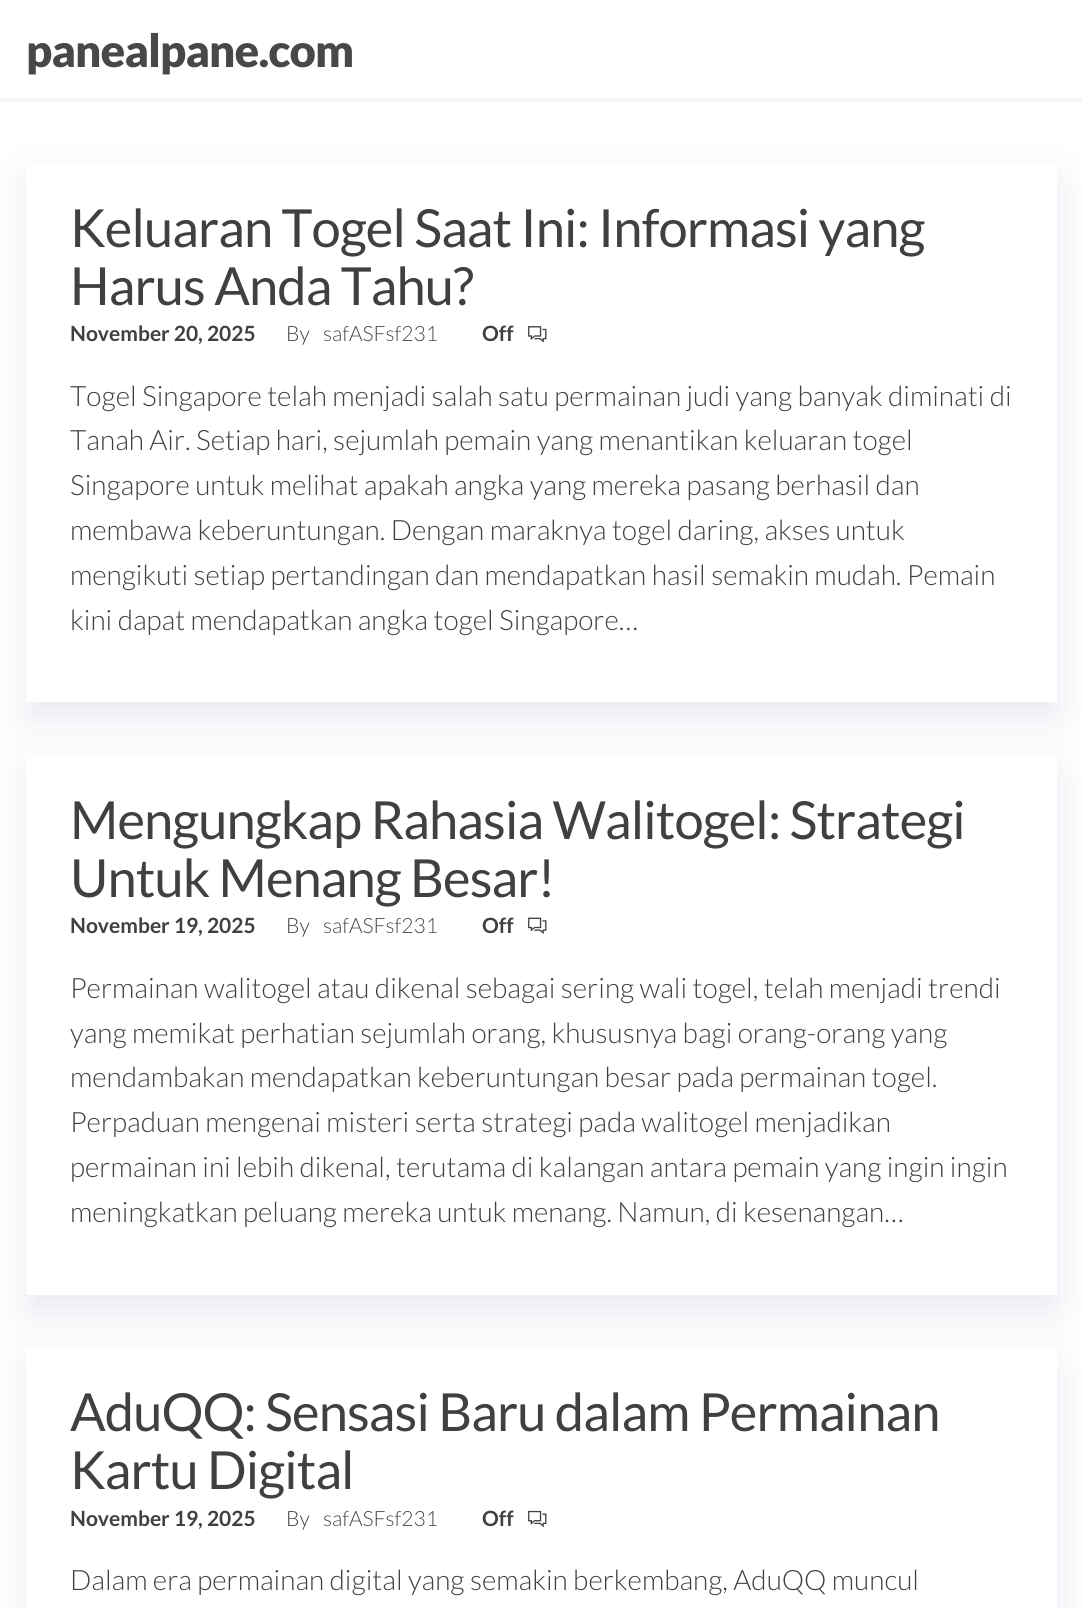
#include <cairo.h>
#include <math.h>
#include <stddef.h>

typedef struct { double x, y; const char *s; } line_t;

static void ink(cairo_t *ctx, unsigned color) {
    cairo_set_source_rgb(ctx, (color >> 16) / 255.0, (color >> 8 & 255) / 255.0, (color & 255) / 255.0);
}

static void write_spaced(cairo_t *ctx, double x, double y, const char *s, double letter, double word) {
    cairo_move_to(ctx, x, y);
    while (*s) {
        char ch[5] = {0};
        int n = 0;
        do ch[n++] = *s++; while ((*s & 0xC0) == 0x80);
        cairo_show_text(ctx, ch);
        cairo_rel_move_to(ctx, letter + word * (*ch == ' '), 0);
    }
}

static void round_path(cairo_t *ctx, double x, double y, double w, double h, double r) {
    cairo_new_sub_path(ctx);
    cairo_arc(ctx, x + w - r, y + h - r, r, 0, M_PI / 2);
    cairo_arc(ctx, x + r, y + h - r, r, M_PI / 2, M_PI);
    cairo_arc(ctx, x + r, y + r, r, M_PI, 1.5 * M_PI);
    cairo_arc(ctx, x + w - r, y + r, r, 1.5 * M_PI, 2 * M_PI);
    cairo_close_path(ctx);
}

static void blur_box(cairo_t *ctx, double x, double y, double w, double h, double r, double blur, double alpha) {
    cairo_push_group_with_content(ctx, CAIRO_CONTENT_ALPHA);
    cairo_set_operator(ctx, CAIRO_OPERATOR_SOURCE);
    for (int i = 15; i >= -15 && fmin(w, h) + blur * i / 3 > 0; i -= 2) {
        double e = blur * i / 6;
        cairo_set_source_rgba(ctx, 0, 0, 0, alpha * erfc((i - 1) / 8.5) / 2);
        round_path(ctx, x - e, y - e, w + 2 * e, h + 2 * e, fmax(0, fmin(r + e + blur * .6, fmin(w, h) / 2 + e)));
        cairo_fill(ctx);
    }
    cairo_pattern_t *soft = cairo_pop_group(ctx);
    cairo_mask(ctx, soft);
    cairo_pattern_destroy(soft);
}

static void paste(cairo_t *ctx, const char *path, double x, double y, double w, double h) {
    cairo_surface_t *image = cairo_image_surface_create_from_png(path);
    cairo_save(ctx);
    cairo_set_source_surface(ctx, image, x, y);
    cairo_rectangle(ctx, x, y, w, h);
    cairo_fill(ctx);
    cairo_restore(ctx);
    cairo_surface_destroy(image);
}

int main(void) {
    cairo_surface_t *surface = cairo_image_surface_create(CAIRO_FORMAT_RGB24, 1082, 1608);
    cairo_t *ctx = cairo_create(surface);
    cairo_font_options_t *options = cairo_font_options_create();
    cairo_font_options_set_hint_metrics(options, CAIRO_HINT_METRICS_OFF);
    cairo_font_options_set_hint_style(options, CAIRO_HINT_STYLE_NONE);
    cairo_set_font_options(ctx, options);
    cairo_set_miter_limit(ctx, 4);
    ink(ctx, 0xFFFFFF);
    cairo_paint(ctx);
    cairo_select_font_face(ctx, "Lato Black", CAIRO_FONT_SLANT_NORMAL, CAIRO_FONT_WEIGHT_NORMAL);
    cairo_set_font_size(ctx, 45.5);
    ink(ctx, 0x484848);
    write_spaced(ctx, 26, 67, "panealpane.com", -0.9, 0);
    ink(ctx, 0xF6F6F6);
    cairo_rectangle(ctx, 0, 98, 1082, 4);
    cairo_fill(ctx);
    cairo_save(ctx);
    cairo_set_fill_rule(ctx, CAIRO_FILL_RULE_EVEN_ODD);
    cairo_new_path(ctx);
    cairo_move_to(ctx, 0, 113);
    cairo_line_to(ctx, 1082, 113);
    cairo_line_to(ctx, 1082, 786);
    cairo_line_to(ctx, 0, 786);
    cairo_close_path(ctx);
    cairo_move_to(ctx, 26, 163);
    cairo_line_to(ctx, 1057, 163);
    cairo_line_to(ctx, 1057, 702);
    cairo_line_to(ctx, 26, 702);
    cairo_close_path(ctx);
    cairo_clip(ctx);
    ink(ctx, 0x192D6E);
    blur_box(ctx, 26, 180, 1031, 539, 0, 22, 0.1);
    cairo_restore(ctx);
    cairo_select_font_face(ctx, "Lato", CAIRO_FONT_SLANT_NORMAL, CAIRO_FONT_WEIGHT_NORMAL);
    cairo_set_font_size(ctx, 52.5);
    ink(ctx, 0x404040);
    write_spaced(ctx, 70, 247, "Keluaran Togel Saat Ini: Informasi yang", -0.9, 0);
    write_spaced(ctx, 70, 305, "Harus Anda Tahu?", -0.9, 0);
    cairo_select_font_face(ctx, "Lato", CAIRO_FONT_SLANT_NORMAL, CAIRO_FONT_WEIGHT_BOLD);
    cairo_set_font_size(ctx, 21);
    cairo_move_to(ctx, 70, 341);
    cairo_show_text(ctx, "November 20, 2025");
    cairo_select_font_face(ctx, "Lato Light", CAIRO_FONT_SLANT_NORMAL, CAIRO_FONT_WEIGHT_NORMAL);
    cairo_move_to(ctx, 286, 341);
    cairo_show_text(ctx, "By");
    ink(ctx, 0x484848);
    cairo_move_to(ctx, 323, 341);
    cairo_show_text(ctx, "safASFsf231");
    cairo_select_font_face(ctx, "Lato", CAIRO_FONT_SLANT_NORMAL, CAIRO_FONT_WEIGHT_BOLD);
    ink(ctx, 0x404040);
    cairo_move_to(ctx, 482, 341);
    cairo_show_text(ctx, "Off");
    paste(ctx, "media/1.png", 528, 326, 19, 17);
    cairo_select_font_face(ctx, "Lato Light", CAIRO_FONT_SLANT_NORMAL, CAIRO_FONT_WEIGHT_NORMAL);
    cairo_set_font_size(ctx, 28);
    {
        static const line_t items[] = {
            {70, 406, "Togel Singapore telah menjadi salah satu permainan judi yang banyak diminati di"},
            {70, 450, "Tanah Air. Setiap hari, sejumlah pemain yang menantikan keluaran togel"},
            {70, 495, "Singapore untuk melihat apakah angka yang mereka pasang berhasil dan"},
            {70, 540, "membawa keberuntungan. Dengan maraknya togel daring, akses untuk"},
            {70, 585, "mengikuti setiap pertandingan dan mendapatkan hasil semakin mudah. Pemain"},
            {70, 630, "kini dapat mendapatkan angka togel Singapore…"},
        };
        for (size_t i = 0; i < sizeof items / sizeof *items; i++) {
            cairo_move_to(ctx, items[i].x, items[i].y);
            cairo_show_text(ctx, items[i].s);
        }
    }
    cairo_save(ctx);
    cairo_set_fill_rule(ctx, CAIRO_FILL_RULE_EVEN_ODD);
    cairo_new_path(ctx);
    cairo_move_to(ctx, 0, 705);
    cairo_line_to(ctx, 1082, 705);
    cairo_line_to(ctx, 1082, 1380);
    cairo_line_to(ctx, 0, 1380);
    cairo_close_path(ctx);
    cairo_move_to(ctx, 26, 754);
    cairo_line_to(ctx, 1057, 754);
    cairo_line_to(ctx, 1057, 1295);
    cairo_line_to(ctx, 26, 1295);
    cairo_close_path(ctx);
    cairo_clip(ctx);
    ink(ctx, 0x192D6E);
    blur_box(ctx, 26, 772, 1031, 541, 0, 22, 0.1);
    cairo_restore(ctx);
    cairo_select_font_face(ctx, "Lato", CAIRO_FONT_SLANT_NORMAL, CAIRO_FONT_WEIGHT_NORMAL);
    cairo_set_font_size(ctx, 52.5);
    write_spaced(ctx, 70, 839, "Mengungkap Rahasia Walitogel: Strategi", -0.9, 0);
    write_spaced(ctx, 70, 897, "Untuk Menang Besar!", -0.9, 0);
    cairo_select_font_face(ctx, "Lato", CAIRO_FONT_SLANT_NORMAL, CAIRO_FONT_WEIGHT_BOLD);
    cairo_set_font_size(ctx, 21);
    cairo_move_to(ctx, 70, 933);
    cairo_show_text(ctx, "November 19, 2025");
    cairo_select_font_face(ctx, "Lato Light", CAIRO_FONT_SLANT_NORMAL, CAIRO_FONT_WEIGHT_NORMAL);
    cairo_move_to(ctx, 286, 933);
    cairo_show_text(ctx, "By");
    ink(ctx, 0x484848);
    cairo_move_to(ctx, 323, 933);
    cairo_show_text(ctx, "safASFsf231");
    cairo_select_font_face(ctx, "Lato", CAIRO_FONT_SLANT_NORMAL, CAIRO_FONT_WEIGHT_BOLD);
    ink(ctx, 0x404040);
    cairo_move_to(ctx, 482, 933);
    cairo_show_text(ctx, "Off");
    paste(ctx, "media/2.png", 528, 917, 19, 17);
    cairo_select_font_face(ctx, "Lato Light", CAIRO_FONT_SLANT_NORMAL, CAIRO_FONT_WEIGHT_NORMAL);
    cairo_set_font_size(ctx, 28);
    {
        static const line_t items[] = {
            {70, 998, "Permainan walitogel atau dikenal sebagai sering wali togel, telah menjadi trendi"},
            {70, 1043, "yang memikat perhatian sejumlah orang, khususnya bagi orang-orang yang"},
            {70, 1087, "mendambakan mendapatkan keberuntungan besar pada permainan togel."},
            {70, 1132, "Perpaduan mengenai misteri serta strategi pada walitogel menjadikan"},
            {70, 1177, "permainan ini lebih dikenal, terutama di kalangan antara pemain yang ingin ingin"},
            {70, 1222, "meningkatkan peluang mereka untuk menang. Namun, di kesenangan…"},
        };
        for (size_t i = 0; i < sizeof items / sizeof *items; i++) {
            cairo_move_to(ctx, items[i].x, items[i].y);
            cairo_show_text(ctx, items[i].s);
        }
    }
    cairo_save(ctx);
    cairo_set_fill_rule(ctx, CAIRO_FILL_RULE_EVEN_ODD);
    cairo_new_path(ctx);
    cairo_move_to(ctx, 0, 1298);
    cairo_line_to(ctx, 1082, 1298);
    cairo_line_to(ctx, 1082, 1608);
    cairo_line_to(ctx, 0, 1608);
    cairo_close_path(ctx);
    cairo_move_to(ctx, 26, 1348);
    cairo_line_to(ctx, 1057, 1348);
    cairo_line_to(ctx, 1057, 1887);
    cairo_line_to(ctx, 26, 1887);
    cairo_close_path(ctx);
    cairo_clip(ctx);
    ink(ctx, 0x192D6E);
    blur_box(ctx, 26, 1365, 1031, 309, 0, 22, 0.1);
    cairo_restore(ctx);
    cairo_select_font_face(ctx, "Lato", CAIRO_FONT_SLANT_NORMAL, CAIRO_FONT_WEIGHT_NORMAL);
    cairo_set_font_size(ctx, 52.5);
    write_spaced(ctx, 70, 1431, "AduQQ: Sensasi Baru dalam Permainan", -0.9, 0);
    write_spaced(ctx, 70, 1489, "Kartu Digital", -0.9, 0);
    cairo_select_font_face(ctx, "Lato", CAIRO_FONT_SLANT_NORMAL, CAIRO_FONT_WEIGHT_BOLD);
    cairo_set_font_size(ctx, 21);
    cairo_move_to(ctx, 70, 1526);
    cairo_show_text(ctx, "November 19, 2025");
    cairo_select_font_face(ctx, "Lato Light", CAIRO_FONT_SLANT_NORMAL, CAIRO_FONT_WEIGHT_NORMAL);
    cairo_move_to(ctx, 286, 1526);
    cairo_show_text(ctx, "By");
    ink(ctx, 0x484848);
    cairo_move_to(ctx, 323, 1526);
    cairo_show_text(ctx, "safASFsf231");
    cairo_select_font_face(ctx, "Lato", CAIRO_FONT_SLANT_NORMAL, CAIRO_FONT_WEIGHT_BOLD);
    ink(ctx, 0x404040);
    cairo_move_to(ctx, 482, 1526);
    cairo_show_text(ctx, "Off");
    paste(ctx, "media/3.png", 528, 1510, 19, 18);
    cairo_select_font_face(ctx, "Lato Light", CAIRO_FONT_SLANT_NORMAL, CAIRO_FONT_WEIGHT_NORMAL);
    cairo_set_font_size(ctx, 28);
    cairo_move_to(ctx, 70, 1590);
    cairo_show_text(ctx, "Dalam era permainan digital yang semakin berkembang, AduQQ muncul");
    cairo_surface_write_to_png(surface, "image.png");
    cairo_font_options_destroy(options);
    cairo_destroy(ctx);
    cairo_surface_destroy(surface);
    return 0;
}
